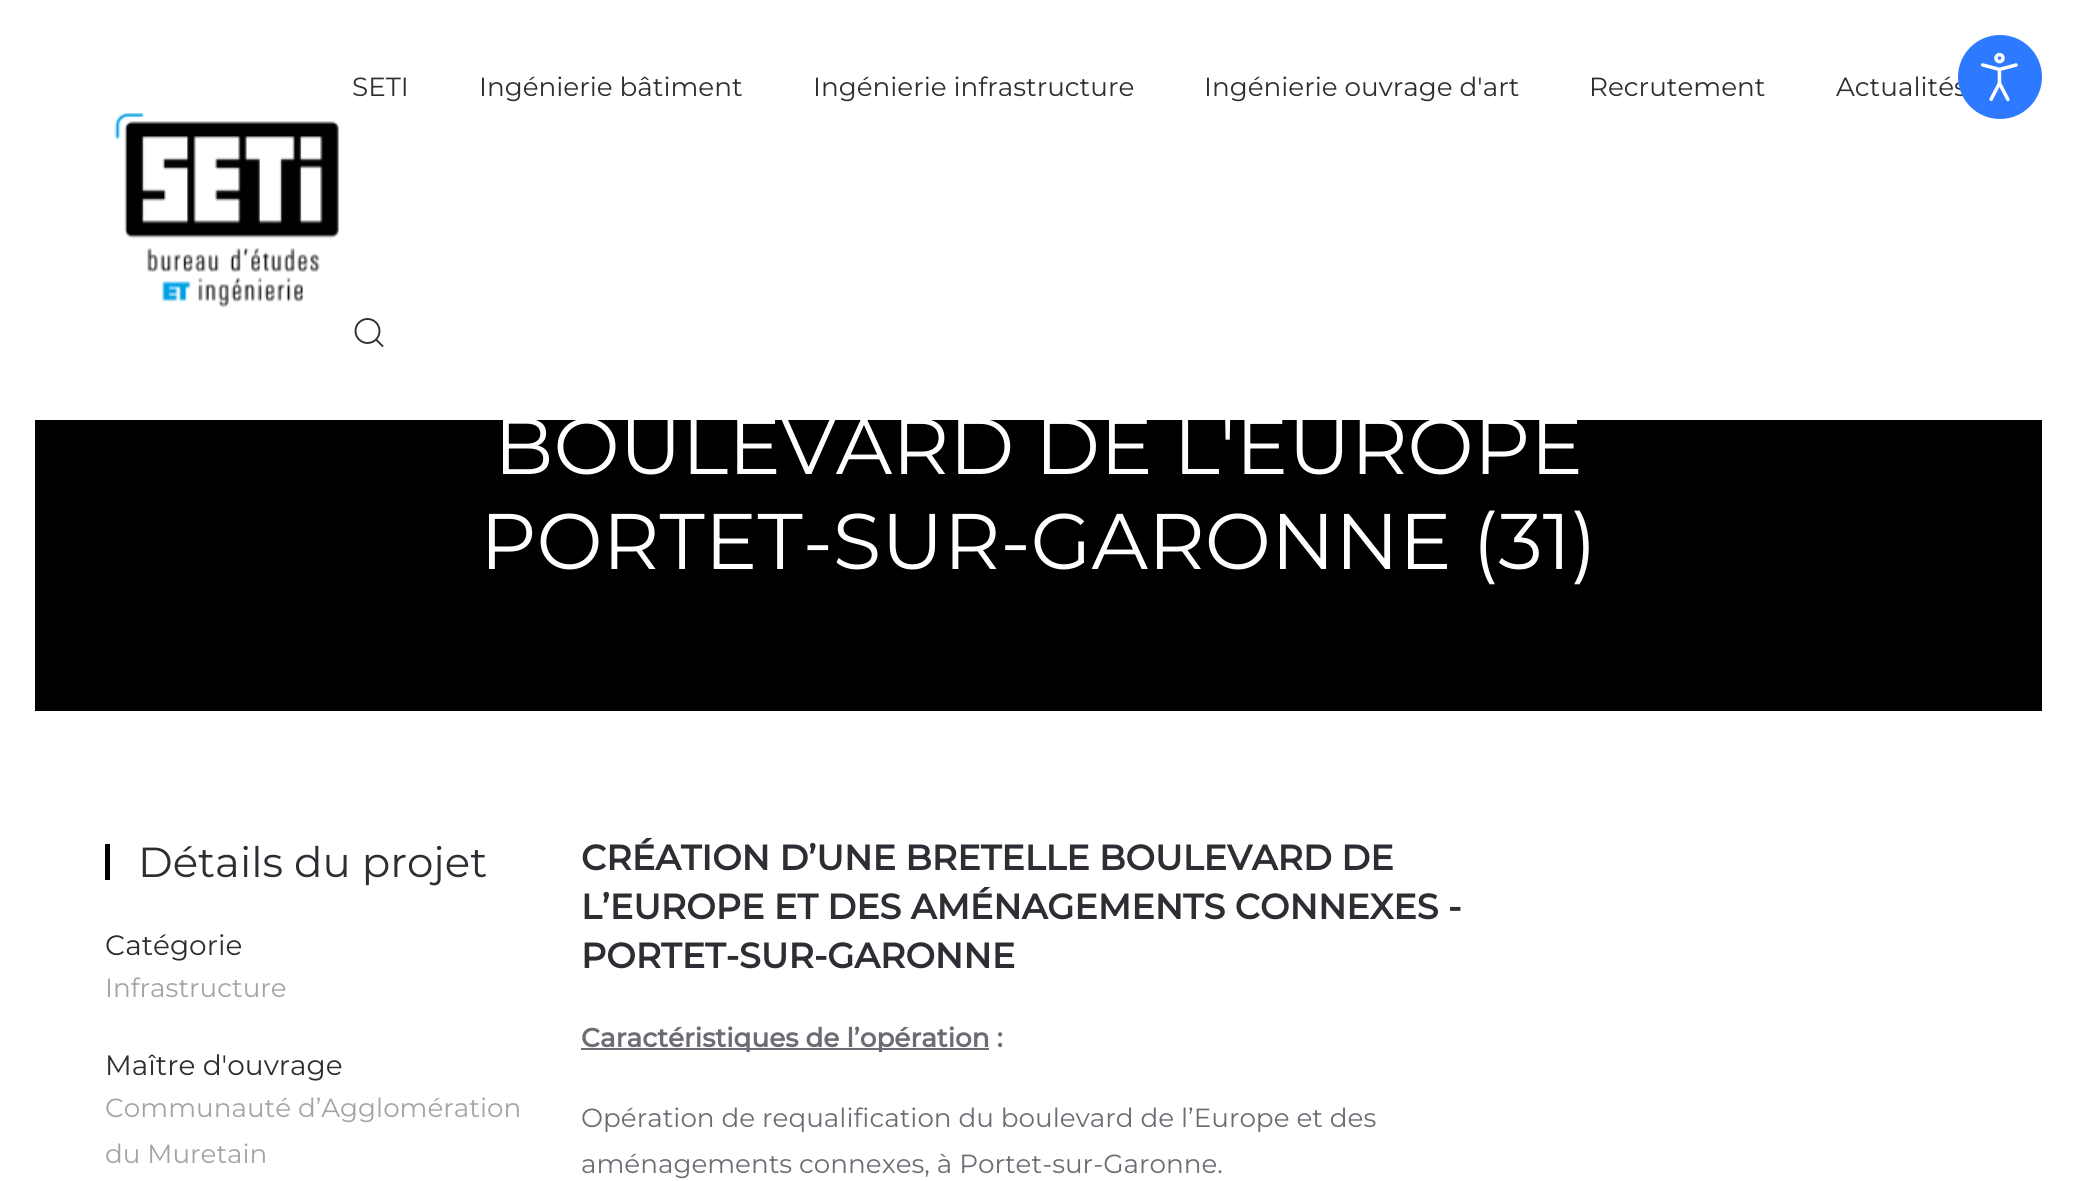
#include <cairo.h>
#include <math.h>
#include <stddef.h>

typedef struct { double x, y; const char *s; } line_t;

static void ink(cairo_t *ctx, unsigned color) {
    cairo_set_source_rgb(ctx, (color >> 16) / 255.0, (color >> 8 & 255) / 255.0, (color & 255) / 255.0);
}

static void paste(cairo_t *ctx, const char *path, double x, double y, double w, double h) {
    cairo_surface_t *image = cairo_image_surface_create_from_png(path);
    cairo_save(ctx);
    cairo_set_source_surface(ctx, image, x, y);
    cairo_rectangle(ctx, x, y, w, h);
    cairo_fill(ctx);
    cairo_restore(ctx);
    cairo_surface_destroy(image);
}

int main(void) {
    cairo_surface_t *surface = cairo_image_surface_create(CAIRO_FORMAT_RGB24, 2076, 1181);
    cairo_t *ctx = cairo_create(surface);
    cairo_font_options_t *options = cairo_font_options_create();
    cairo_font_options_set_hint_metrics(options, CAIRO_HINT_METRICS_OFF);
    cairo_font_options_set_hint_style(options, CAIRO_HINT_STYLE_NONE);
    cairo_set_font_options(ctx, options);
    cairo_set_miter_limit(ctx, 4);
    ink(ctx, 0xFFFFFF);
    cairo_paint(ctx);
    cairo_select_font_face(ctx, "Montserrat Thin", CAIRO_FONT_SLANT_NORMAL, CAIRO_FONT_WEIGHT_NORMAL);
    cairo_set_font_size(ctx, 26.25);
    ink(ctx, 0x2D2E33);
    {
        static const line_t items[] = {
            {352, 96, "SETI"},
            {479, 96, "Ingénierie bâtiment"},
            {813, 96, "Ingénierie infrastructure"},
            {1204, 96, "Ingénierie ouvrage d'art"},
            {1589, 96, "Recrutement"},
            {1836, 96, "Actualités"},
        };
        for (size_t i = 0; i < sizeof items / sizeof *items; i++) {
            cairo_move_to(ctx, items[i].x, items[i].y);
            cairo_show_text(ctx, items[i].s);
        }
    }
    cairo_new_path(ctx);
    cairo_arc(ctx, 367.5, 331, 12, 0, 2 * M_PI);
    cairo_set_line_width(ctx, 1.9);
    cairo_stroke(ctx);
    cairo_new_path(ctx);
    cairo_move_to(ctx, 376, 339.5);
    cairo_line_to(ctx, 383, 346.5);
    cairo_close_path(ctx);
    cairo_stroke(ctx);
    paste(ctx, "media/1.png", 114, 113, 225, 195);
    ink(ctx, 0x000000);
    cairo_rectangle(ctx, 35, 420, 2007, 291);
    cairo_fill(ctx);
    cairo_set_font_size(ctx, 78.75);
    ink(ctx, 0xFFFFFF);
    cairo_move_to(ctx, 494, 474);
    cairo_show_text(ctx, "BOULEVARD DE L'EUROPE");
    cairo_move_to(ctx, 480, 569);
    cairo_show_text(ctx, "PORTET-SUR-GARONNE (31)");
    ink(ctx, 0x000000);
    cairo_rectangle(ctx, 105, 844, 5, 36);
    cairo_fill(ctx);
    cairo_set_font_size(ctx, 42);
    ink(ctx, 0x2D2E33);
    cairo_move_to(ctx, 138, 877);
    cairo_show_text(ctx, "Détails du projet");
    cairo_set_font_size(ctx, 28);
    cairo_move_to(ctx, 105, 955);
    cairo_show_text(ctx, "Catégorie");
    cairo_set_font_size(ctx, 26.25);
    ink(ctx, 0xA3A4A8);
    cairo_move_to(ctx, 105, 997);
    cairo_show_text(ctx, "Infrastructure");
    cairo_set_font_size(ctx, 28);
    ink(ctx, 0x2D2E33);
    cairo_move_to(ctx, 105, 1075);
    cairo_show_text(ctx, "Maître d'ouvrage");
    cairo_set_font_size(ctx, 26.25);
    ink(ctx, 0xA3A4A8);
    cairo_move_to(ctx, 105, 1117);
    cairo_show_text(ctx, "Communauté d’Agglomération");
    cairo_move_to(ctx, 105, 1163);
    cairo_show_text(ctx, "du Muretain");
    cairo_select_font_face(ctx, "Montserrat", CAIRO_FONT_SLANT_NORMAL, CAIRO_FONT_WEIGHT_BOLD);
    cairo_set_font_size(ctx, 35);
    ink(ctx, 0x2D2E33);
    {
        static const line_t items[] = {
            {581, 870, "CRÉATION D’UNE BRETELLE BOULEVARD DE"},
            {581, 919, "L’EUROPE ET DES AMÉNAGEMENTS CONNEXES -"},
            {581, 968, "PORTET-SUR-GARONNE"},
        };
        for (size_t i = 0; i < sizeof items / sizeof *items; i++) {
            cairo_move_to(ctx, items[i].x, items[i].y);
            cairo_show_text(ctx, items[i].s);
        }
    }
    ink(ctx, 0x6C6D74);
    cairo_rectangle(ctx, 581, 1048, 408, 2);
    cairo_fill(ctx);
    cairo_set_font_size(ctx, 26.25);
    cairo_move_to(ctx, 581, 1047);
    cairo_show_text(ctx, "Caractéristiques de l’opération :");
    cairo_select_font_face(ctx, "Montserrat Thin", CAIRO_FONT_SLANT_NORMAL, CAIRO_FONT_WEIGHT_NORMAL);
    cairo_move_to(ctx, 581, 1127);
    cairo_show_text(ctx, "Opération de requalification du boulevard de l’Europe et des");
    cairo_move_to(ctx, 581, 1173);
    cairo_show_text(ctx, "aménagements connexes, à Portet-sur-Garonne.");
    ink(ctx, 0x2D79FF);
    cairo_new_path(ctx);
    cairo_arc(ctx, 2000, 77, 42, 0, 2 * M_PI);
    cairo_fill(ctx);
    paste(ctx, "media/2.png", 1980, 52, 38, 50);
    cairo_surface_write_to_png(surface, "image.png");
    cairo_font_options_destroy(options);
    cairo_destroy(ctx);
    cairo_surface_destroy(surface);
    return 0;
}
